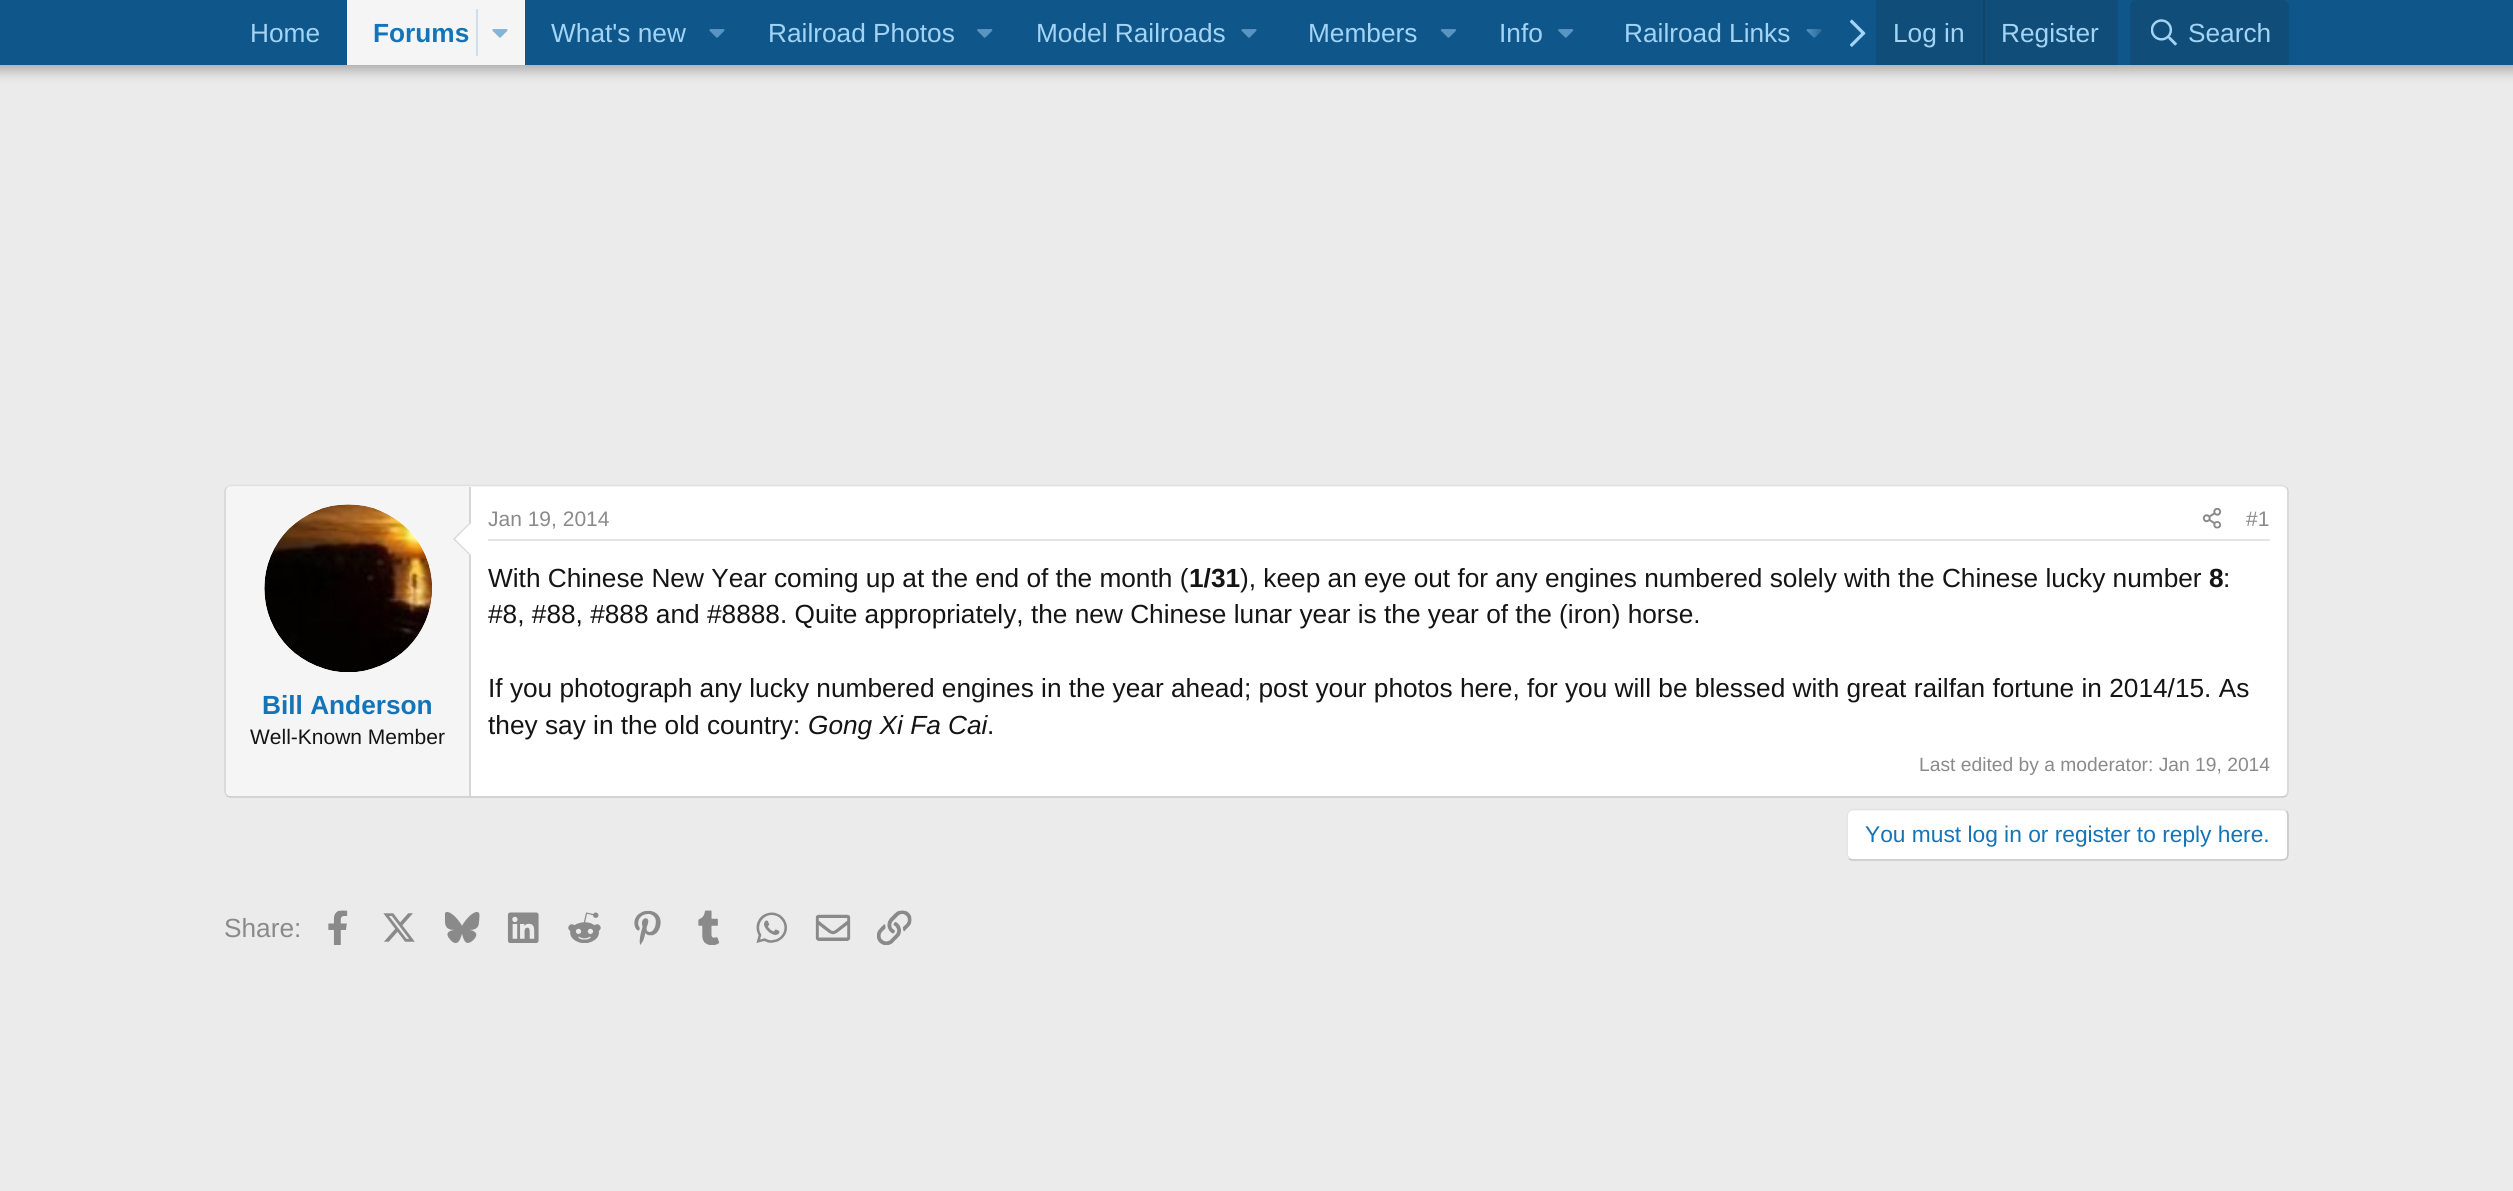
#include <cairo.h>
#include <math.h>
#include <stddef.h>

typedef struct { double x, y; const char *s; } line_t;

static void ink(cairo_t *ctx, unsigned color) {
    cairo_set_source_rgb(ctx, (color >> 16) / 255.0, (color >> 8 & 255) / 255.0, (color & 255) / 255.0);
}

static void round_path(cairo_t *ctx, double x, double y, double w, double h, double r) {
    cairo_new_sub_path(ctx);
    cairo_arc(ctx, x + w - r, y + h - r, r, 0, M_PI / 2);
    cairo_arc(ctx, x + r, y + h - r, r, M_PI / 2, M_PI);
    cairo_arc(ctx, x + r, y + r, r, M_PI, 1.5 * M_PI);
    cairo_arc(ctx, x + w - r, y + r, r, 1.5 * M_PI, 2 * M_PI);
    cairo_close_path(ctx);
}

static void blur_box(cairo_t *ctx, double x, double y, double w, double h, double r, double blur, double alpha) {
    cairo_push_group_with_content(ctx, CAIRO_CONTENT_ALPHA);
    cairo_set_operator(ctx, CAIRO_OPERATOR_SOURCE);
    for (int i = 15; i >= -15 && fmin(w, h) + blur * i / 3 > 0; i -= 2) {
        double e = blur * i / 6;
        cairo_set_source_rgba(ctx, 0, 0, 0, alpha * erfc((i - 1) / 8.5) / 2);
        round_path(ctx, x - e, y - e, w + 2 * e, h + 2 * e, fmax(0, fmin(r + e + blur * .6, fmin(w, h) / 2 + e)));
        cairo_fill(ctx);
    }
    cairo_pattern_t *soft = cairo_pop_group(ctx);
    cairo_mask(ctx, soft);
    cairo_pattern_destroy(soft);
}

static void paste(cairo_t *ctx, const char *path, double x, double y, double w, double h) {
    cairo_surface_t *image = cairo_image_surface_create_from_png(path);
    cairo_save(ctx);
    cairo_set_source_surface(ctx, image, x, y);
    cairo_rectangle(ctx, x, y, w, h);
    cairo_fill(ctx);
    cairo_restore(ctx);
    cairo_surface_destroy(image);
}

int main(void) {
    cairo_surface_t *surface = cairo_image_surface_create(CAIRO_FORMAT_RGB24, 2513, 1191);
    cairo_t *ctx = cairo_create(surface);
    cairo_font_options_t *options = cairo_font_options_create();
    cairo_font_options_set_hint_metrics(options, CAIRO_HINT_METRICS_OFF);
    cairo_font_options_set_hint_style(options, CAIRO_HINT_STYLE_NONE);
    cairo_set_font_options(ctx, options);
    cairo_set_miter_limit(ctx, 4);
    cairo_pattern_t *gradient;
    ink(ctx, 0xEBEBEB);
    cairo_paint(ctx);
    ink(ctx, 0x000000);
    blur_box(ctx, -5, -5, 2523, 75, 0, 7, 0.3);
    ink(ctx, 0x0F578A);
    cairo_rectangle(ctx, 0, 0, 2513, 65);
    cairo_fill(ctx);
    cairo_select_font_face(ctx, "Liberation Sans", CAIRO_FONT_SLANT_NORMAL, CAIRO_FONT_WEIGHT_NORMAL);
    cairo_set_font_size(ctx, 26.25);
    ink(ctx, 0xA3D4F5);
    cairo_move_to(ctx, 250, 42);
    cairo_show_text(ctx, "Home");
    ink(ctx, 0xF5F5F5);
    cairo_rectangle(ctx, 347, 0, 178, 65);
    cairo_fill(ctx);
    cairo_select_font_face(ctx, "Liberation Sans", CAIRO_FONT_SLANT_NORMAL, CAIRO_FONT_WEIGHT_BOLD);
    ink(ctx, 0x1474B8);
    cairo_move_to(ctx, 373, 42);
    cairo_show_text(ctx, "Forums");
    ink(ctx, 0xCEDFEB);
    cairo_rectangle(ctx, 476, 9, 2, 47);
    cairo_fill(ctx);
    paste(ctx, "media/1.png", 492, 29, 16, 9);
    cairo_select_font_face(ctx, "Liberation Sans", CAIRO_FONT_SLANT_NORMAL, CAIRO_FONT_WEIGHT_NORMAL);
    ink(ctx, 0xA3D4F5);
    cairo_move_to(ctx, 551, 42);
    cairo_show_text(ctx, "What's new");
    paste(ctx, "media/2.png", 709, 29, 16, 9);
    cairo_move_to(ctx, 768, 42);
    cairo_show_text(ctx, "Railroad Photos");
    paste(ctx, "media/3.png", 977, 29, 16, 9);
    cairo_move_to(ctx, 1036, 42);
    cairo_show_text(ctx, "Model Railroads");
    paste(ctx, "media/2.png", 1241, 29, 16, 9);
    cairo_move_to(ctx, 1308, 42);
    cairo_show_text(ctx, "Members");
    paste(ctx, "media/4.png", 1440, 29, 16, 9);
    cairo_move_to(ctx, 1499, 42);
    cairo_show_text(ctx, "Info");
    paste(ctx, "media/3.png", 1558, 29, 16, 9);
    cairo_move_to(ctx, 1624, 42);
    cairo_show_text(ctx, "Railroad Links");
    paste(ctx, "media/5.png", 1806, 29, 16, 9);
    gradient = cairo_pattern_create_linear(1806, 32, 1876, 32);
    cairo_pattern_add_color_stop_rgba(gradient, 0, 0.059, 0.341, 0.541, 0);
    cairo_pattern_add_color_stop_rgba(gradient, 0.33, 0.059, 0.341, 0.541, 1);
    cairo_set_source(ctx, gradient);
    cairo_pattern_destroy(gradient);
    cairo_rectangle(ctx, 1807, 29, 15, 9);
    cairo_fill(ctx);
    paste(ctx, "media/6.png", 1850, 19, 16, 28);
    ink(ctx, 0x104D78);
    cairo_rectangle(ctx, 1876, 0, 242, 65);
    cairo_fill(ctx);
    ink(ctx, 0xA3D4F5);
    cairo_move_to(ctx, 1893, 42);
    cairo_show_text(ctx, "Log in");
    ink(ctx, 0x114469);
    cairo_rectangle(ctx, 1983, 0, 2, 65);
    cairo_fill(ctx);
    ink(ctx, 0xA3D4F5);
    cairo_move_to(ctx, 2001, 42);
    cairo_show_text(ctx, "Register");
    ink(ctx, 0x104D78);
    cairo_new_path(ctx);
    cairo_move_to(ctx, 2137, 0);
    cairo_line_to(ctx, 2282, 0);
    cairo_curve_to(ctx, 2286, 0, 2289, 3, 2289, 7);
    cairo_line_to(ctx, 2289, 65);
    cairo_line_to(ctx, 2130, 65);
    cairo_line_to(ctx, 2130, 7);
    cairo_curve_to(ctx, 2130, 3, 2133, 0, 2137, 0);
    cairo_close_path(ctx);
    cairo_fill(ctx);
    paste(ctx, "media/7.png", 2151, 19, 26, 27);
    ink(ctx, 0xA3D4F5);
    cairo_move_to(ctx, 2188, 42);
    cairo_show_text(ctx, "Search");
    ink(ctx, 0xFFFFFF);
    round_path(ctx, 224, 485, 2065, 313, 7);
    cairo_fill(ctx);
    cairo_new_path(ctx);
    cairo_move_to(ctx, 226.5, 487.5);
    cairo_curve_to(ctx, 228, 486.5, 229.5, 485.5, 231, 485.5);
    cairo_line_to(ctx, 2282, 485.5);
    cairo_curve_to(ctx, 2283.5, 485.5, 2285, 486.5, 2286.5, 487.5);
    ink(ctx, 0xE0E0E0);
    cairo_set_line_width(ctx, 1.8);
    cairo_stroke(ctx);
    cairo_new_path(ctx);
    cairo_move_to(ctx, 2286.5, 487.5);
    cairo_curve_to(ctx, 2287.5, 488.5, 2288, 490, 2288, 492);
    cairo_line_to(ctx, 2288, 791);
    cairo_curve_to(ctx, 2288, 792.5, 2287.5, 794, 2286.5, 795.5);
    ink(ctx, 0xD6D6D6);
    cairo_stroke(ctx);
    cairo_new_path(ctx);
    cairo_move_to(ctx, 2286.5, 795.5);
    cairo_curve_to(ctx, 2285, 796.5, 2283.5, 797, 2282, 797);
    cairo_line_to(ctx, 231, 797);
    cairo_curve_to(ctx, 229.5, 797, 228, 796.5, 226.5, 795.5);
    ink(ctx, 0xCCCCCC);
    cairo_stroke(ctx);
    cairo_new_path(ctx);
    cairo_move_to(ctx, 226.5, 795.5);
    cairo_curve_to(ctx, 225.5, 794, 225, 792.5, 225, 791);
    cairo_line_to(ctx, 225, 492);
    cairo_curve_to(ctx, 225, 490, 225.5, 488.5, 226.5, 487.5);
    ink(ctx, 0xD6D6D6);
    cairo_stroke(ctx);
    ink(ctx, 0xF5F5F5);
    cairo_new_path(ctx);
    cairo_move_to(ctx, 231, 487);
    cairo_line_to(ctx, 471, 487);
    cairo_line_to(ctx, 471, 796);
    cairo_line_to(ctx, 231, 796);
    cairo_curve_to(ctx, 228, 796, 226, 794, 226, 791);
    cairo_line_to(ctx, 226, 492);
    cairo_curve_to(ctx, 226, 489, 228, 487, 231, 487);
    cairo_close_path(ctx);
    cairo_fill(ctx);
    ink(ctx, 0xD6D6D6);
    cairo_rectangle(ctx, 469, 487, 2, 309);
    cairo_fill(ctx);
    ink(ctx, 0xFFFFFF);
    cairo_arc(ctx, 348, 588, 84, 0, 2 * M_PI);
    cairo_fill(ctx);
    paste(ctx, "media/8.png", 264, 504, 168, 168);
    ink(ctx, 0xD6D6D6);
    cairo_new_path(ctx);
    cairo_move_to(ctx, 471, 521.5);
    cairo_line_to(ctx, 471, 556.5);
    cairo_line_to(ctx, 453, 539);
    cairo_close_path(ctx);
    cairo_fill(ctx);
    ink(ctx, 0xFFFFFF);
    cairo_new_path(ctx);
    cairo_move_to(ctx, 471, 523);
    cairo_line_to(ctx, 471, 555);
    cairo_line_to(ctx, 455, 539);
    cairo_close_path(ctx);
    cairo_fill(ctx);
    cairo_select_font_face(ctx, "Liberation Sans", CAIRO_FONT_SLANT_NORMAL, CAIRO_FONT_WEIGHT_BOLD);
    ink(ctx, 0x1474B8);
    cairo_move_to(ctx, 262, 714);
    cairo_show_text(ctx, "Bill Anderson");
    cairo_select_font_face(ctx, "Liberation Sans", CAIRO_FONT_SLANT_NORMAL, CAIRO_FONT_WEIGHT_NORMAL);
    cairo_set_font_size(ctx, 21);
    ink(ctx, 0x141414);
    cairo_move_to(ctx, 250, 744);
    cairo_show_text(ctx, "Well-Known Member");
    ink(ctx, 0xE5E5E5);
    cairo_rectangle(ctx, 488, 539, 1782, 2);
    cairo_fill(ctx);
    ink(ctx, 0x8A8A8A);
    cairo_move_to(ctx, 488, 526);
    cairo_show_text(ctx, "Jan 19, 2014");
    paste(ctx, "media/9.png", 2202, 508, 20, 21);
    cairo_move_to(ctx, 2246, 526);
    cairo_show_text(ctx, "#1");
    cairo_set_font_size(ctx, 26.25);
    ink(ctx, 0x141414);
    cairo_move_to(ctx, 488, 587);
    cairo_show_text(ctx, "With Chinese New Year coming up at the end of the month (");
    cairo_select_font_face(ctx, "Liberation Sans", CAIRO_FONT_SLANT_NORMAL, CAIRO_FONT_WEIGHT_BOLD);
    cairo_move_to(ctx, 1189, 587);
    cairo_show_text(ctx, "1/31");
    cairo_select_font_face(ctx, "Liberation Sans", CAIRO_FONT_SLANT_NORMAL, CAIRO_FONT_WEIGHT_NORMAL);
    cairo_move_to(ctx, 1240, 587);
    cairo_show_text(ctx, "), keep an eye out for any engines numbered solely with the Chinese lucky number");
    cairo_select_font_face(ctx, "Liberation Sans", CAIRO_FONT_SLANT_NORMAL, CAIRO_FONT_WEIGHT_BOLD);
    cairo_move_to(ctx, 2209, 587);
    cairo_show_text(ctx, "8");
    cairo_select_font_face(ctx, "Liberation Sans", CAIRO_FONT_SLANT_NORMAL, CAIRO_FONT_WEIGHT_NORMAL);
    {
        static const line_t items[] = {
            {2223, 587, ":"},
            {488, 623, "#8, #88, #888 and #8888. Quite appropriately, the new Chinese lunar year is the year of the (iron) horse."},
            {488, 697, "If you photograph any lucky numbered engines in the year ahead; post your photos here, for you will be blessed with great railfan fortune in 2014/15. As"},
            {488, 734, "they say in the old country:"},
        };
        for (size_t i = 0; i < sizeof items / sizeof *items; i++) {
            cairo_move_to(ctx, items[i].x, items[i].y);
            cairo_show_text(ctx, items[i].s);
        }
    }
    cairo_select_font_face(ctx, "Liberation Sans", CAIRO_FONT_SLANT_ITALIC, CAIRO_FONT_WEIGHT_NORMAL);
    cairo_move_to(ctx, 808, 734);
    cairo_show_text(ctx, "Gong Xi Fa Cai");
    cairo_select_font_face(ctx, "Liberation Sans", CAIRO_FONT_SLANT_NORMAL, CAIRO_FONT_WEIGHT_NORMAL);
    cairo_move_to(ctx, 987, 734);
    cairo_show_text(ctx, ".");
    cairo_set_font_size(ctx, 19.25);
    ink(ctx, 0x8A8A8A);
    cairo_move_to(ctx, 1919, 771);
    cairo_show_text(ctx, "Last edited by a moderator: Jan 19, 2014");
    ink(ctx, 0xFFFFFF);
    round_path(ctx, 1846, 809, 443, 52, 7);
    cairo_fill(ctx);
    cairo_new_path(ctx);
    cairo_move_to(ctx, 2286.5, 811);
    cairo_curve_to(ctx, 2287.5, 812.5, 2288, 814, 2288, 815.5);
    cairo_line_to(ctx, 2288, 854);
    cairo_curve_to(ctx, 2288, 855.5, 2287.5, 857, 2286.5, 858.5);
    cairo_curve_to(ctx, 2285, 859.5, 2283.5, 860, 2282, 860);
    cairo_line_to(ctx, 1853, 860);
    cairo_curve_to(ctx, 1851.5, 860, 1850, 859.5, 1849, 858.5);
    ink(ctx, 0xC9C9C9);
    cairo_stroke(ctx);
    cairo_new_path(ctx);
    cairo_move_to(ctx, 1849, 858.5);
    cairo_curve_to(ctx, 1848, 857, 1847, 855.5, 1847, 854);
    cairo_line_to(ctx, 1847, 815.5);
    cairo_curve_to(ctx, 1847, 814, 1848, 812.5, 1849, 811);
    cairo_curve_to(ctx, 1850, 810, 1851.5, 809.5, 1853, 809.5);
    cairo_line_to(ctx, 2282, 809.5);
    cairo_curve_to(ctx, 2283.5, 809.5, 2285, 810, 2286.5, 811);
    ink(ctx, 0xE3E3E3);
    cairo_stroke(ctx);
    cairo_set_font_size(ctx, 22.75);
    ink(ctx, 0x1474B8);
    cairo_move_to(ctx, 1865, 842);
    cairo_show_text(ctx, "You must log in or register to reply here.");
    cairo_set_font_size(ctx, 26.25);
    ink(ctx, 0x8A8A8A);
    cairo_move_to(ctx, 224, 937);
    cairo_show_text(ctx, "Share:");
    paste(ctx, "media/10.png", 328, 910, 20, 35);
    paste(ctx, "media/11.png", 383, 913, 32, 29);
    paste(ctx, "media/12.png", 445, 912, 35, 31);
    paste(ctx, "media/13.png", 507, 912, 32, 31);
    paste(ctx, "media/14.png", 568, 912, 33, 31);
    paste(ctx, "media/15.png", 634, 910, 27, 35);
    paste(ctx, "media/16.png", 698, 910, 22, 35);
    paste(ctx, "media/17.png", 756, 912, 31, 31);
    paste(ctx, "media/18.png", 815, 914, 36, 27);
    paste(ctx, "media/19.png", 877, 910, 35, 35);
    cairo_surface_write_to_png(surface, "image.png");
    cairo_font_options_destroy(options);
    cairo_destroy(ctx);
    cairo_surface_destroy(surface);
    return 0;
}
